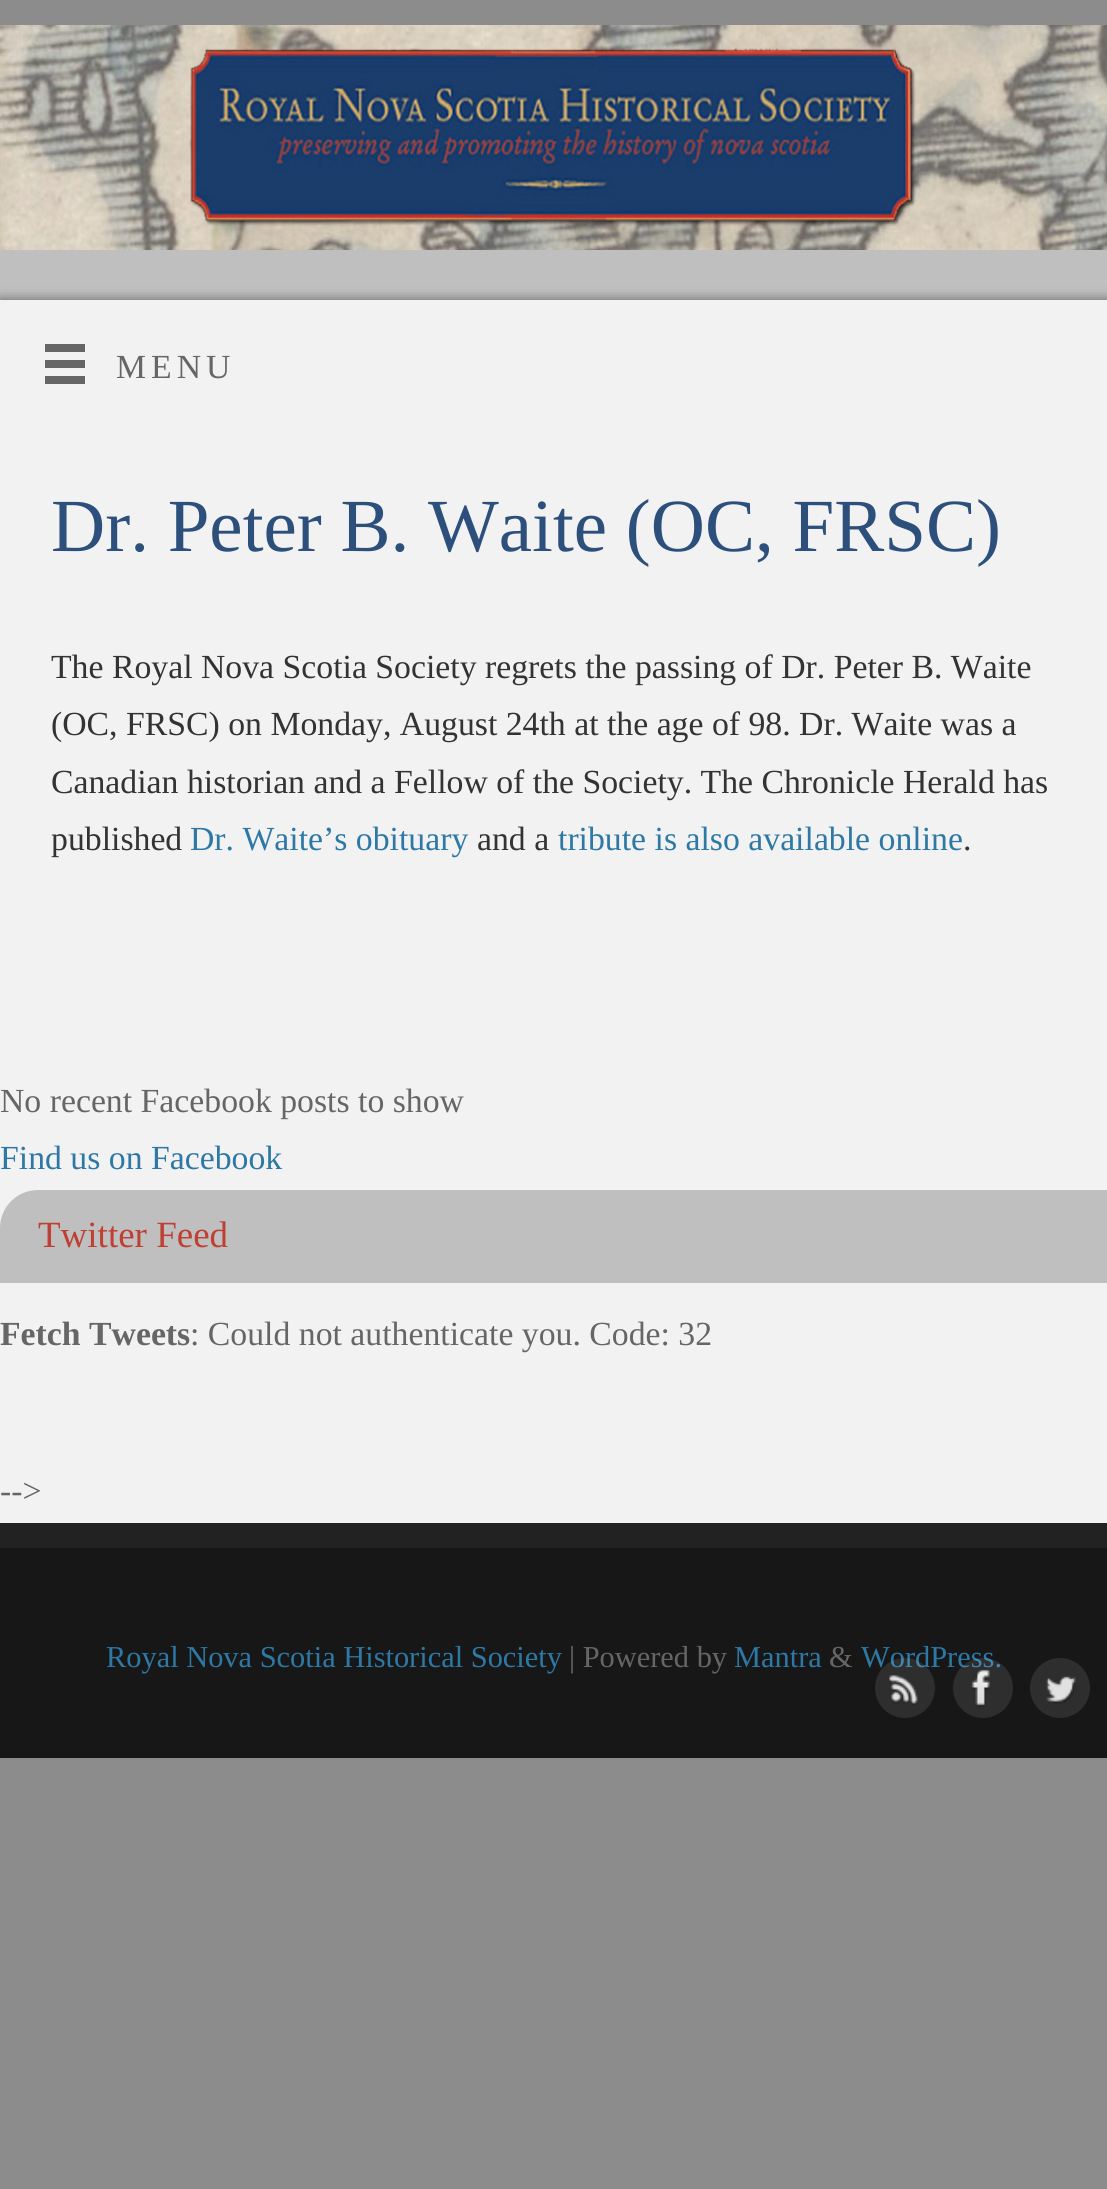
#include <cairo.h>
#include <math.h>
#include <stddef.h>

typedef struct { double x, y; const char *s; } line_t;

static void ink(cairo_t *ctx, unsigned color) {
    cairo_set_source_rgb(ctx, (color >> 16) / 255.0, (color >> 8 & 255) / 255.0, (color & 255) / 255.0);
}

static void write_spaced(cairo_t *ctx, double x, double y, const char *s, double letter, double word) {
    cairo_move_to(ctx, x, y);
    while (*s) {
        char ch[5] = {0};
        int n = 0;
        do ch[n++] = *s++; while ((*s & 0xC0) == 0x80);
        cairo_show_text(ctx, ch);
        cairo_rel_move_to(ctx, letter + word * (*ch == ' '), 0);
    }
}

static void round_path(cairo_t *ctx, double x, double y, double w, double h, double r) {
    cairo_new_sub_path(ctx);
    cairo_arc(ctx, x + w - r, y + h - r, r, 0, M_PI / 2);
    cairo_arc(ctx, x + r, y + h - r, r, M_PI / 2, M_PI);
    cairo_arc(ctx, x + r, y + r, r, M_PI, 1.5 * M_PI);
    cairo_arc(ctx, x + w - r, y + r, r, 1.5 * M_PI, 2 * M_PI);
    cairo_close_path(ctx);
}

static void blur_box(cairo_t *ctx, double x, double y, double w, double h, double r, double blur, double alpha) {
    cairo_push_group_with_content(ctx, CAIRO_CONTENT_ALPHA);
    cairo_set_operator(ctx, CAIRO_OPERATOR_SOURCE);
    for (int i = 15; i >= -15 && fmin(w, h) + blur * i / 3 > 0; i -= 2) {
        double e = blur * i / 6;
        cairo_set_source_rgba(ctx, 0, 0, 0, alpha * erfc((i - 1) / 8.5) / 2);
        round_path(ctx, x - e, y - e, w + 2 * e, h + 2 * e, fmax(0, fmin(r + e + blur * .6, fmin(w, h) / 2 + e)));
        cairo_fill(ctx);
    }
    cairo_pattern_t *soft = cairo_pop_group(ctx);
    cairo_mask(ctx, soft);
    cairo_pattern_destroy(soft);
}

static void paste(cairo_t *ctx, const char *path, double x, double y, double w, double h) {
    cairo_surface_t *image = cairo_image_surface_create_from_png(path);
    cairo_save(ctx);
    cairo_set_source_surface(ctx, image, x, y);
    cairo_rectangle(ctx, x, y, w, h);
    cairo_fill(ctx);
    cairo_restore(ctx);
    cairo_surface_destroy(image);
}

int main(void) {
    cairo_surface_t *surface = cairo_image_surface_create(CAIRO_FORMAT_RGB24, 1107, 2189);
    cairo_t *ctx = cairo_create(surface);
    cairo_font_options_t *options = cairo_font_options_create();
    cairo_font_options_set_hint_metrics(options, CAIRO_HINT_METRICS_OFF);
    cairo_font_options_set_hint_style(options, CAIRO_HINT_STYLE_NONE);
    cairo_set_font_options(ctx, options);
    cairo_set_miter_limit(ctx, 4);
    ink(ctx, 0x8C8C8C);
    cairo_paint(ctx);
    ink(ctx, 0xBFBFBF);
    cairo_rectangle(ctx, 0, 250, 1107, 50);
    cairo_fill(ctx);
    paste(ctx, "media/1.png", 0, 25, 1107, 225);
    ink(ctx, 0x000000);
    blur_box(ctx, 0, 300, 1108, 125, 0, 6, 0.5);
    ink(ctx, 0xF2F2F2);
    cairo_rectangle(ctx, 0, 300, 1107, 1223);
    cairo_fill(ctx);
    cairo_select_font_face(ctx, "Liberation Serif", CAIRO_FONT_SLANT_NORMAL, CAIRO_FONT_WEIGHT_NORMAL);
    cairo_set_font_size(ctx, 33.75);
    ink(ctx, 0x666666);
    write_spaced(ctx, 116, 378, "MENU", 5, 0);
    cairo_new_path(ctx);
    cairo_move_to(ctx, 45, 344);
    cairo_line_to(ctx, 45, 352);
    cairo_line_to(ctx, 85, 352);
    cairo_line_to(ctx, 85, 344);
    cairo_close_path(ctx);
    cairo_move_to(ctx, 45, 360);
    cairo_line_to(ctx, 45, 368);
    cairo_line_to(ctx, 85, 368);
    cairo_line_to(ctx, 85, 360);
    cairo_close_path(ctx);
    cairo_move_to(ctx, 45, 376);
    cairo_line_to(ctx, 45, 384);
    cairo_line_to(ctx, 85, 384);
    cairo_line_to(ctx, 85, 376);
    cairo_close_path(ctx);
    cairo_fill(ctx);
    cairo_set_font_size(ctx, 75);
    ink(ctx, 0x2C4F7C);
    cairo_move_to(ctx, 51, 551);
    cairo_show_text(ctx, "Dr. Peter B. Waite (OC, FRSC)");
    cairo_set_font_size(ctx, 33.75);
    ink(ctx, 0x333333);
    {
        static const line_t items[] = {
            {51, 678, "The Royal Nova Scotia Society regrets the passing of Dr. Peter B. Waite"},
            {51, 735, "(OC, FRSC) on Monday, August 24th at the age of 98. Dr. Waite was a"},
            {51, 793, "Canadian historian and a Fellow of the Society. The Chronicle Herald has"},
            {51, 850, "published"},
        };
        for (size_t i = 0; i < sizeof items / sizeof *items; i++) {
            cairo_move_to(ctx, items[i].x, items[i].y);
            cairo_show_text(ctx, items[i].s);
        }
    }
    ink(ctx, 0x2D78A5);
    cairo_move_to(ctx, 190, 850);
    cairo_show_text(ctx, "Dr. Waite’s obituary");
    ink(ctx, 0x333333);
    cairo_move_to(ctx, 477, 850);
    cairo_show_text(ctx, "and a");
    ink(ctx, 0x2D78A5);
    cairo_move_to(ctx, 558, 850);
    cairo_show_text(ctx, "tribute is also available online");
    ink(ctx, 0x333333);
    cairo_move_to(ctx, 963, 850);
    cairo_show_text(ctx, ".");
    ink(ctx, 0x666666);
    cairo_move_to(ctx, 0, 1112);
    cairo_show_text(ctx, "No recent Facebook posts to show");
    ink(ctx, 0x2D78A5);
    cairo_move_to(ctx, 0, 1169);
    cairo_show_text(ctx, "Find us on Facebook");
    ink(ctx, 0xBFBFBF);
    cairo_new_path(ctx);
    cairo_move_to(ctx, 38, 1190);
    cairo_line_to(ctx, 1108, 1190);
    cairo_line_to(ctx, 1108, 1283);
    cairo_line_to(ctx, 0, 1283);
    cairo_line_to(ctx, 0, 1228);
    cairo_curve_to(ctx, 0, 1207, 17, 1190, 38, 1190);
    cairo_close_path(ctx);
    cairo_fill(ctx);
    cairo_set_font_size(ctx, 37);
    ink(ctx, 0xBF3F34);
    cairo_move_to(ctx, 38, 1247);
    cairo_show_text(ctx, "Twitter Feed");
    cairo_select_font_face(ctx, "Liberation Serif", CAIRO_FONT_SLANT_NORMAL, CAIRO_FONT_WEIGHT_BOLD);
    cairo_set_font_size(ctx, 33.75);
    ink(ctx, 0x666666);
    cairo_move_to(ctx, 0, 1345);
    cairo_show_text(ctx, "Fetch Tweets");
    cairo_select_font_face(ctx, "Liberation Serif", CAIRO_FONT_SLANT_NORMAL, CAIRO_FONT_WEIGHT_NORMAL);
    cairo_move_to(ctx, 190, 1345);
    cairo_show_text(ctx, ": Could not authenticate you. Code: 32");
    cairo_move_to(ctx, 0, 1502);
    cairo_show_text(ctx, "-->");
    ink(ctx, 0x222222);
    cairo_rectangle(ctx, 0, 1523, 1107, 25);
    cairo_fill(ctx);
    ink(ctx, 0x171717);
    cairo_rectangle(ctx, 0, 1548, 1107, 210);
    cairo_fill(ctx);
    cairo_set_font_size(ctx, 30.4);
    ink(ctx, 0x2D78A5);
    cairo_move_to(ctx, 106, 1667);
    cairo_show_text(ctx, "Royal Nova Scotia Historical Society");
    ink(ctx, 0x666666);
    cairo_move_to(ctx, 569, 1667);
    cairo_show_text(ctx, "| Powered by");
    ink(ctx, 0x2D78A5);
    cairo_move_to(ctx, 734, 1667);
    cairo_show_text(ctx, "Mantra");
    ink(ctx, 0x666666);
    cairo_move_to(ctx, 829, 1667);
    cairo_show_text(ctx, "&");
    ink(ctx, 0x2D78A5);
    cairo_move_to(ctx, 861, 1667);
    cairo_show_text(ctx, "WordPress.");
    cairo_set_source_rgba(ctx, 1, 1, 1, 0.1);
    cairo_new_path(ctx);
    cairo_arc(ctx, 905, 1688, 30, 0, 2 * M_PI);
    cairo_fill(ctx);
    paste(ctx, "media/2.png", 889, 1675, 29, 30);
    cairo_arc(ctx, 983, 1688, 30, 0, 2 * M_PI);
    cairo_fill(ctx);
    paste(ctx, "media/3.png", 971, 1669, 19, 38);
    ink(ctx, 0x2E2E2E);
    cairo_arc(ctx, 1060, 1688, 30, 0, 2 * M_PI);
    cairo_fill(ctx);
    paste(ctx, "media/4.png", 1046, 1676, 30, 28);
    cairo_surface_write_to_png(surface, "image.png");
    cairo_font_options_destroy(options);
    cairo_destroy(ctx);
    cairo_surface_destroy(surface);
    return 0;
}
